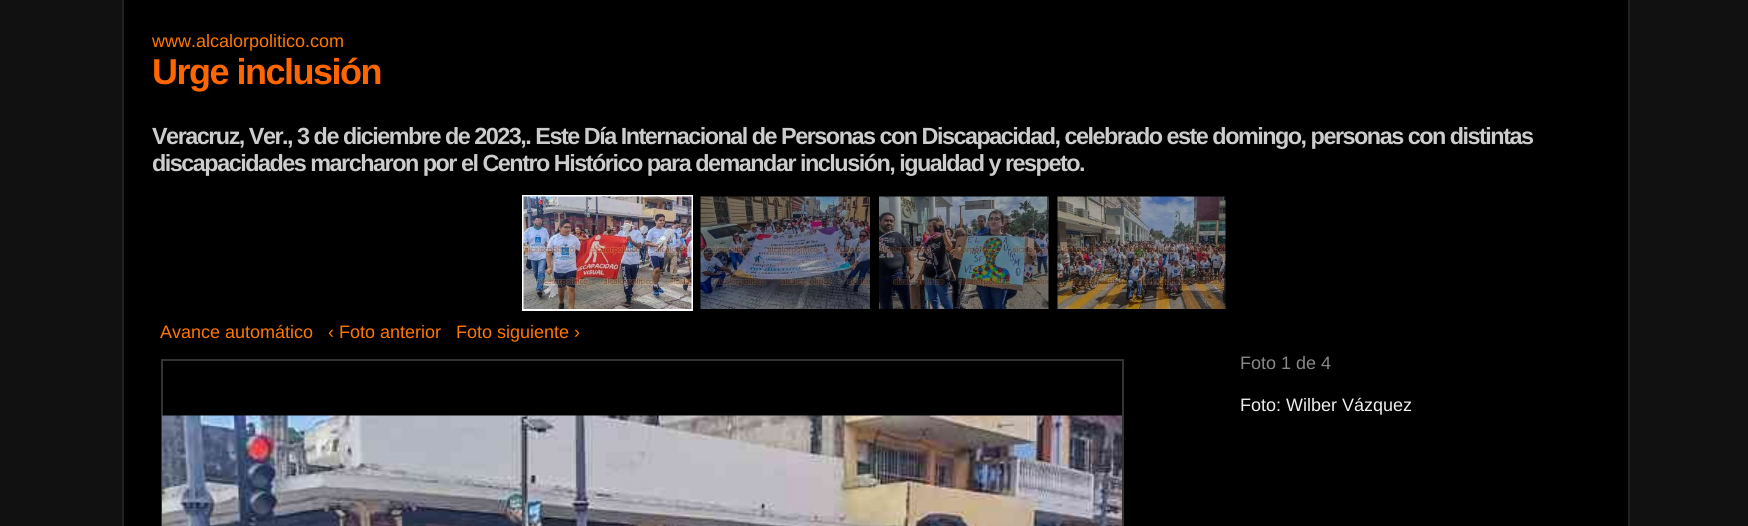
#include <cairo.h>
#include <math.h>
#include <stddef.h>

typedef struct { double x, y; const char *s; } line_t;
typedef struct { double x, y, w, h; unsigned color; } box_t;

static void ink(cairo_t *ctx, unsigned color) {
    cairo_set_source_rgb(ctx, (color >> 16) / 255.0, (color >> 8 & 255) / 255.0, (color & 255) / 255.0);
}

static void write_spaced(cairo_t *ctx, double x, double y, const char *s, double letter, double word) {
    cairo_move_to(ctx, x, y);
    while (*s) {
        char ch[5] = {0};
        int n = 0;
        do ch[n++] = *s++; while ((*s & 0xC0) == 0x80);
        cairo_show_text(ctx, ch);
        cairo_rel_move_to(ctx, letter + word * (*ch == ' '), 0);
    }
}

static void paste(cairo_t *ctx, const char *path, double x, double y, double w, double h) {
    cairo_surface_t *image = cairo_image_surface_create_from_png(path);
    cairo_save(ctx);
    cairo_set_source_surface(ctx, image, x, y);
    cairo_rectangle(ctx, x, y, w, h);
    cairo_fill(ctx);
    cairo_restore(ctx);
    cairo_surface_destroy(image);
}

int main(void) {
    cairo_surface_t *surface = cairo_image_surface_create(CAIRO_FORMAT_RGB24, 1748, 526);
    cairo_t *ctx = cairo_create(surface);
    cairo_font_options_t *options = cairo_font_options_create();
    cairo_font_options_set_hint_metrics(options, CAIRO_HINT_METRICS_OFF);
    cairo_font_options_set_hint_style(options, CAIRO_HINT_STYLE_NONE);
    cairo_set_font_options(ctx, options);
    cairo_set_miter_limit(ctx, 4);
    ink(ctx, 0x111111);
    cairo_paint(ctx);
    {
        static const box_t items[] = {
            {124, 0, 1504, 526, 0x000000},
            {1628, 0, 2, 526, 0x222222},
            {122, 0, 2, 526, 0x222222},
        };
        for (size_t i = 0; i < sizeof items / sizeof *items; i++) {
            ink(ctx, items[i].color);
            cairo_rectangle(ctx, items[i].x, items[i].y, items[i].w, items[i].h);
            cairo_fill(ctx);
        }
    }
    cairo_select_font_face(ctx, "Liberation Sans", CAIRO_FONT_SLANT_NORMAL, CAIRO_FONT_WEIGHT_NORMAL);
    cairo_set_font_size(ctx, 18);
    ink(ctx, 0xFF7700);
    cairo_move_to(ctx, 152, 47);
    cairo_show_text(ctx, "www.alcalorpolitico.com");
    cairo_select_font_face(ctx, "Liberation Sans", CAIRO_FONT_SLANT_NORMAL, CAIRO_FONT_WEIGHT_BOLD);
    cairo_set_font_size(ctx, 36);
    ink(ctx, 0xFF6600);
    write_spaced(ctx, 152, 84, "Urge inclusión", -1.5, 0);
    cairo_set_font_size(ctx, 23.4);
    ink(ctx, 0xCCCCCC);
    write_spaced(ctx, 152, 144, "Veracruz, Ver., 3 de diciembre de 2023,. Este Día Internacional de Personas con Discapacidad, celebrado este domingo, personas con distintas", -1.5, 0);
    write_spaced(ctx, 152, 171, "discapacidades marcharon por el Centro Histórico para demandar inclusión, igualdad y respeto.", -1.5, 0);
    ink(ctx, 0xFFFFFF);
    cairo_rectangle(ctx, 522, 195, 171, 116);
    cairo_fill(ctx);
    paste(ctx, "media/1.png", 523, 196, 169, 113);
    paste(ctx, "media/2.png", 700, 196, 170, 113);
    paste(ctx, "media/3.png", 879, 196, 170, 113);
    paste(ctx, "media/4.png", 1057, 196, 169, 113);
    cairo_select_font_face(ctx, "Liberation Sans", CAIRO_FONT_SLANT_NORMAL, CAIRO_FONT_WEIGHT_NORMAL);
    cairo_set_font_size(ctx, 18);
    ink(ctx, 0xFF7700);
    {
        static const line_t items[] = {
            {160, 338, "Avance automático"},
            {328, 338, "‹ Foto anterior"},
            {456, 338, "Foto siguiente ›"},
        };
        for (size_t i = 0; i < sizeof items / sizeof *items; i++) {
            cairo_move_to(ctx, items[i].x, items[i].y);
            cairo_show_text(ctx, items[i].s);
        }
    }
    cairo_rectangle(ctx, 162, 360, 961, 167);
    ink(ctx, 0x333333);
    cairo_stroke(ctx);
    paste(ctx, "media/5.png", 162, 415, 960, 111);
    ink(ctx, 0x888888);
    cairo_move_to(ctx, 1240, 369);
    cairo_show_text(ctx, "Foto 1 de 4");
    ink(ctx, 0xEEEEEE);
    cairo_move_to(ctx, 1240, 411);
    cairo_show_text(ctx, "Foto: Wilber Vázquez");
    cairo_surface_write_to_png(surface, "image.png");
    cairo_font_options_destroy(options);
    cairo_destroy(ctx);
    cairo_surface_destroy(surface);
    return 0;
}
